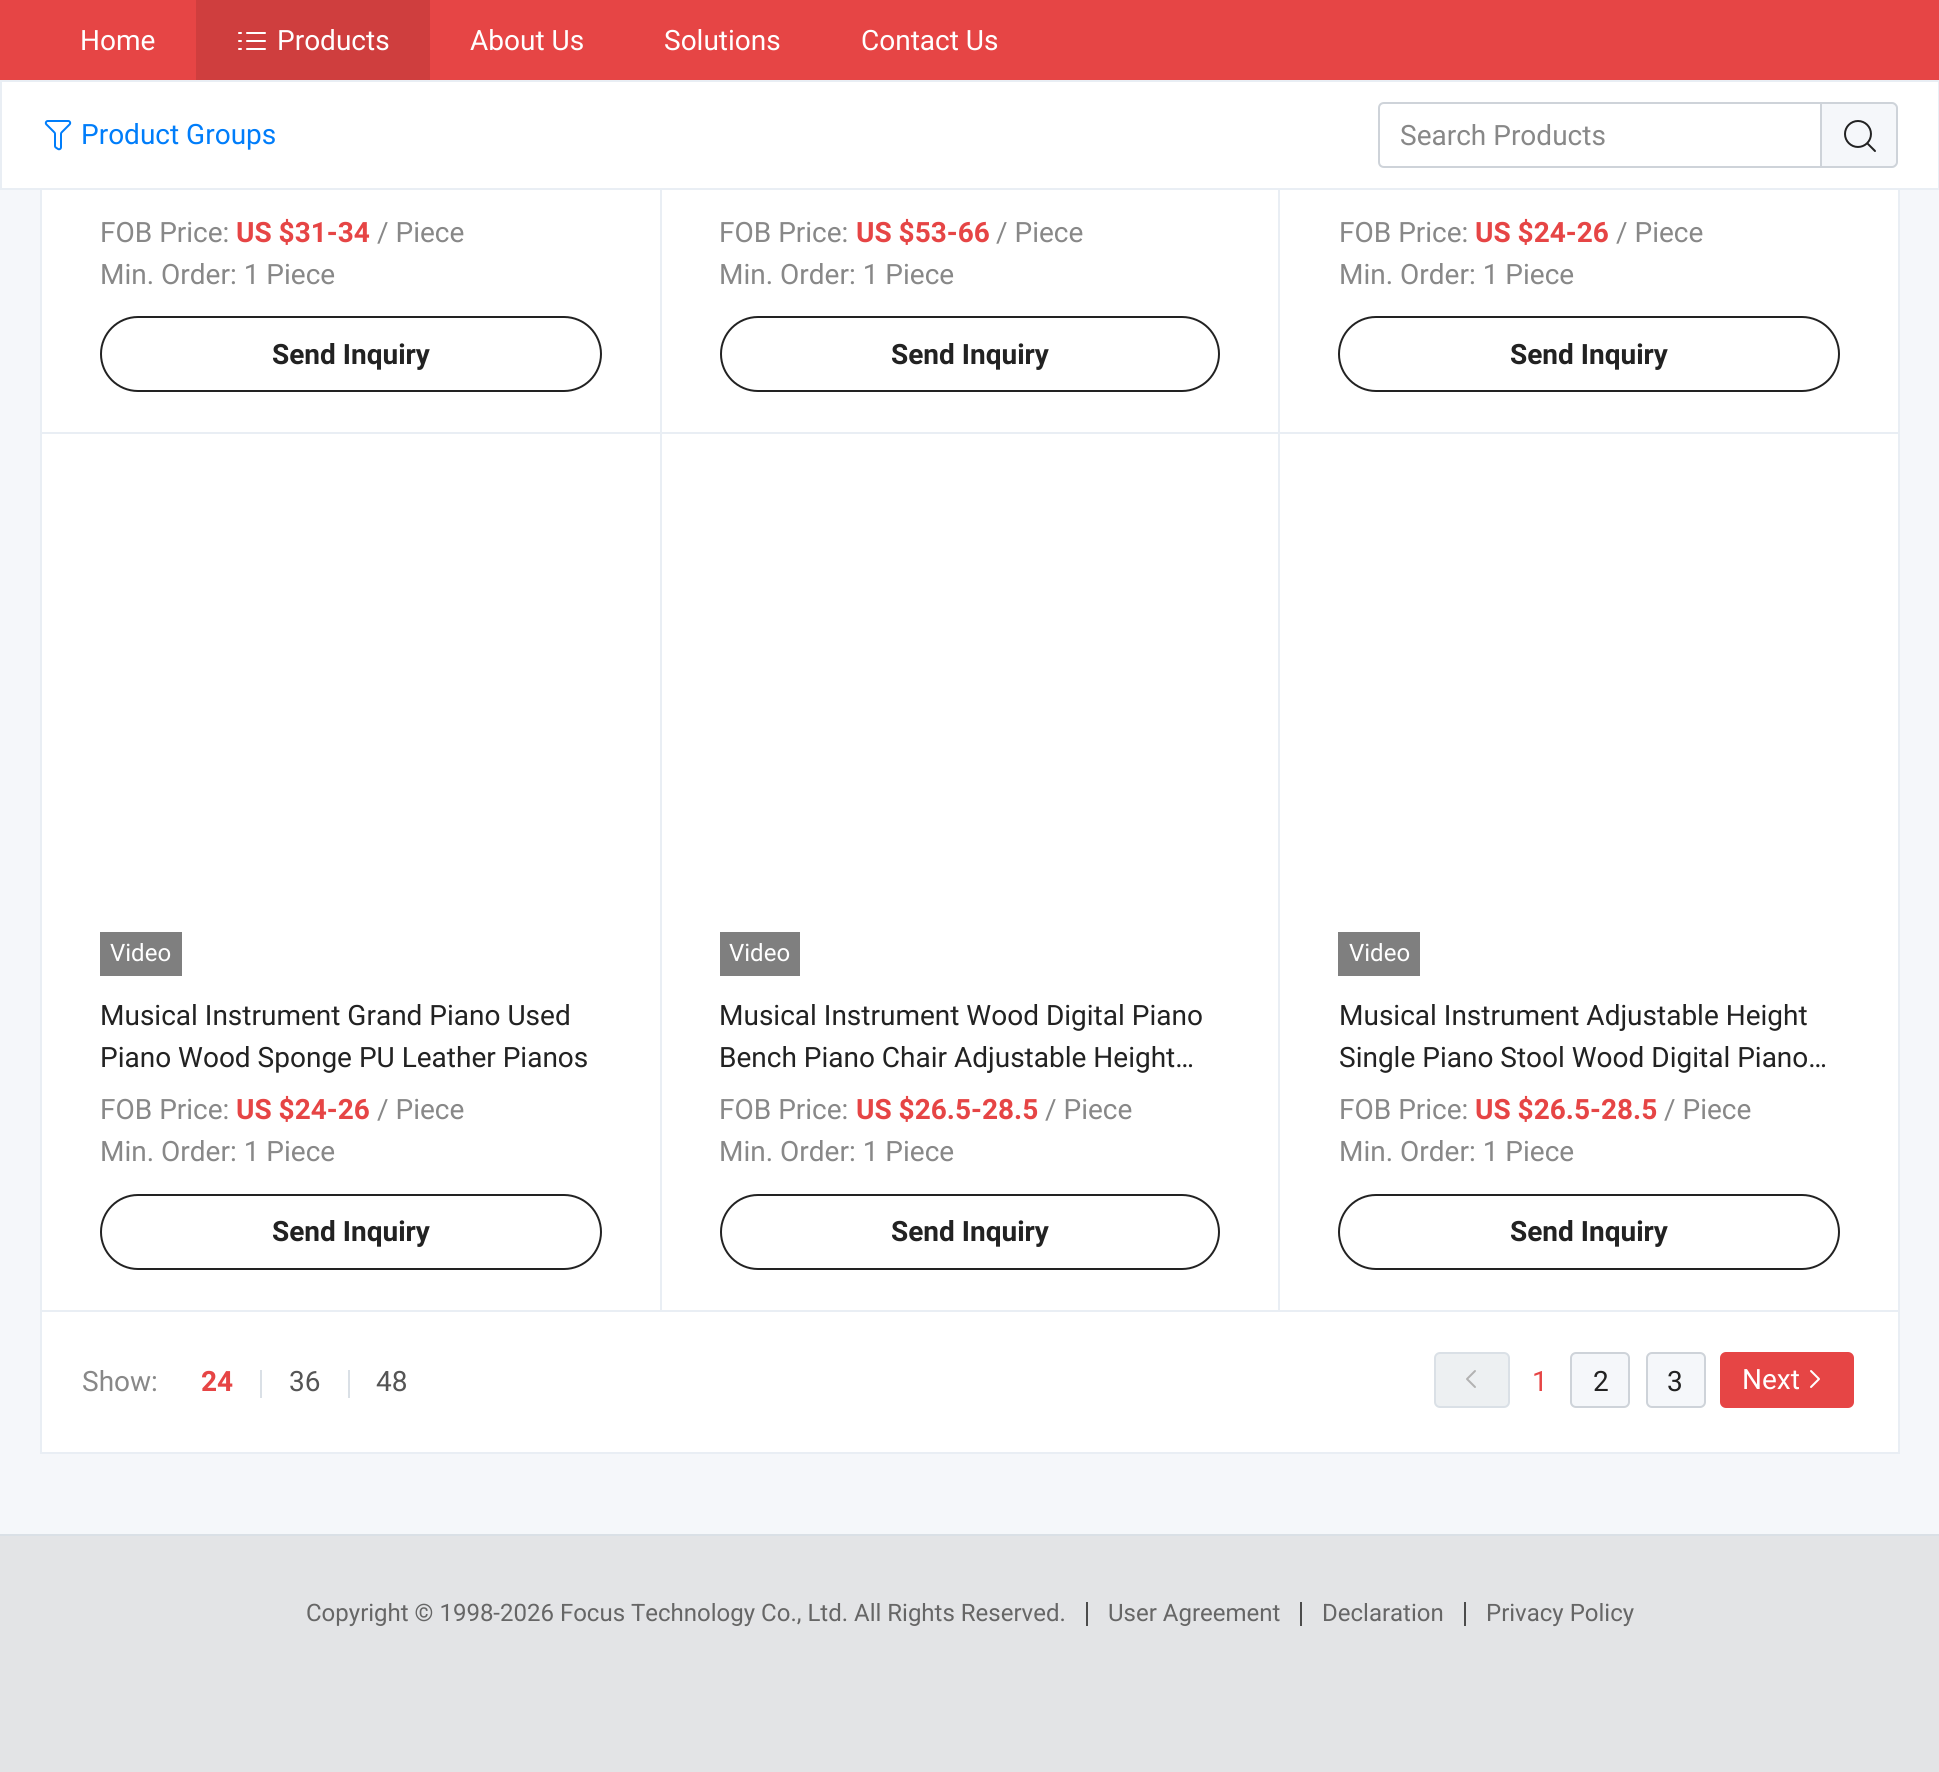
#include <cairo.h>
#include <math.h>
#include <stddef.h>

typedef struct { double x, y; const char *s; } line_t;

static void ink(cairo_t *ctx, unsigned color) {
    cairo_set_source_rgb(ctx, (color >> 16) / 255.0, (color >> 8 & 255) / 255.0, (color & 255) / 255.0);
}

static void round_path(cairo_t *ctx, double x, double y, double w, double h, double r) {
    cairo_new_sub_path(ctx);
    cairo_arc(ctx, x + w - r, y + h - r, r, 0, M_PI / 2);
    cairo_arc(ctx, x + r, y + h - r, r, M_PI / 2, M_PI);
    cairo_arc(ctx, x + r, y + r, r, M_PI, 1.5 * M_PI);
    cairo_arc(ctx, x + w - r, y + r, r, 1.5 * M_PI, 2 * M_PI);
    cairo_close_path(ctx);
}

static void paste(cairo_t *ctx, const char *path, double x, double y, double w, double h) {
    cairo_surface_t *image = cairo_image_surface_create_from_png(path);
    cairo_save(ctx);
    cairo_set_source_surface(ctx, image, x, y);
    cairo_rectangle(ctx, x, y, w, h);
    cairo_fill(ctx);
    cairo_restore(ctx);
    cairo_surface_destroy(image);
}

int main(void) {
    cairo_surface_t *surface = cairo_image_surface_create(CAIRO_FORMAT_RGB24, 1939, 1772);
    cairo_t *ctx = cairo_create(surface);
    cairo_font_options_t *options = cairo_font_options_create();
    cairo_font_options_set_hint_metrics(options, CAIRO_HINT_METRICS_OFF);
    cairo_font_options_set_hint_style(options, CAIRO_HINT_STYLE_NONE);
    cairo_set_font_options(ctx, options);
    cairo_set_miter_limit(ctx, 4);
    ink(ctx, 0xF5F7FA);
    cairo_paint(ctx);
    ink(ctx, 0xFFFFFF);
    cairo_rectangle(ctx, 42, 190, 1856, 1262);
    cairo_fill(ctx);
    cairo_rectangle(ctx, 41, -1, 1858, 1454);
    ink(ctx, 0xE9EEF4);
    cairo_stroke(ctx);
    ink(ctx, 0xE64545);
    cairo_rectangle(ctx, 0, 0, 1939, 80);
    cairo_fill(ctx);
    cairo_select_font_face(ctx, "Roboto", CAIRO_FONT_SLANT_NORMAL, CAIRO_FONT_WEIGHT_NORMAL);
    cairo_set_font_size(ctx, 28);
    ink(ctx, 0xFFFFFF);
    cairo_move_to(ctx, 80, 50);
    cairo_show_text(ctx, "Home");
    ink(ctx, 0xCF3E3E);
    cairo_rectangle(ctx, 196, 0, 234, 80);
    cairo_fill(ctx);
    paste(ctx, "media/1.png", 238, 32, 28, 18);
    ink(ctx, 0xFFFFFF);
    {
        static const line_t items[] = {
            {277, 50, "Products"},
            {470, 50, "About Us"},
            {664, 50, "Solutions"},
            {861, 50, "Contact Us"},
        };
        for (size_t i = 0; i < sizeof items / sizeof *items; i++) {
            cairo_move_to(ctx, items[i].x, items[i].y);
            cairo_show_text(ctx, items[i].s);
        }
    }
    cairo_rectangle(ctx, 1, 81, 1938, 108);
    cairo_fill_preserve(ctx);
    ink(ctx, 0xE9EEF4);
    cairo_stroke(ctx);
    paste(ctx, "media/2.png", 44, 120, 28, 31);
    ink(ctx, 0x007DFA);
    cairo_move_to(ctx, 81, 144);
    cairo_show_text(ctx, "Product Groups");
    cairo_new_path(ctx);
    cairo_move_to(ctx, 1384, 103);
    cairo_line_to(ctx, 1821, 103);
    cairo_line_to(ctx, 1821, 167);
    cairo_line_to(ctx, 1384, 167);
    cairo_curve_to(ctx, 1381, 167, 1379, 165, 1379, 162);
    cairo_line_to(ctx, 1379, 108);
    cairo_curve_to(ctx, 1379, 105, 1381, 103, 1384, 103);
    cairo_close_path(ctx);
    ink(ctx, 0xCED3D9);
    cairo_stroke(ctx);
    ink(ctx, 0x888888);
    cairo_move_to(ctx, 1400, 145);
    cairo_show_text(ctx, "Search Products");
    ink(ctx, 0xF5F7FA);
    cairo_new_path(ctx);
    cairo_move_to(ctx, 1822, 102);
    cairo_line_to(ctx, 1892, 102);
    cairo_curve_to(ctx, 1895.5, 102, 1898, 104.5, 1898, 108);
    cairo_line_to(ctx, 1898, 162);
    cairo_curve_to(ctx, 1898, 165.5, 1895.5, 168, 1892, 168);
    cairo_line_to(ctx, 1822, 168);
    cairo_close_path(ctx);
    cairo_fill(ctx);
    ink(ctx, 0xCED3D9);
    cairo_set_fill_rule(ctx, CAIRO_FILL_RULE_EVEN_ODD);
    cairo_new_path(ctx);
    cairo_move_to(ctx, 1822, 102);
    cairo_line_to(ctx, 1892, 102);
    cairo_curve_to(ctx, 1895, 102, 1898, 105, 1898, 108);
    cairo_line_to(ctx, 1898, 162);
    cairo_curve_to(ctx, 1898, 165, 1895, 168, 1892, 168);
    cairo_line_to(ctx, 1822, 168);
    cairo_close_path(ctx);
    cairo_move_to(ctx, 1822, 104);
    cairo_line_to(ctx, 1892, 104);
    cairo_curve_to(ctx, 1894, 104, 1896, 106, 1896, 108);
    cairo_line_to(ctx, 1896, 162);
    cairo_curve_to(ctx, 1896, 164, 1894, 166, 1892, 166);
    cairo_line_to(ctx, 1822, 166);
    cairo_close_path(ctx);
    cairo_fill(ctx);
    paste(ctx, "media/3.png", 1844, 120, 32, 32);
    ink(ctx, 0xE9EEF4);
    cairo_rectangle(ctx, 660, 190, 2, 1122);
    cairo_fill(ctx);
    cairo_rectangle(ctx, 42, 432, 620, 2);
    cairo_fill(ctx);
    ink(ctx, 0x888888);
    cairo_move_to(ctx, 100, 242);
    cairo_show_text(ctx, "FOB Price:");
    cairo_select_font_face(ctx, "Roboto", CAIRO_FONT_SLANT_NORMAL, CAIRO_FONT_WEIGHT_BOLD);
    ink(ctx, 0xE64545);
    cairo_move_to(ctx, 236, 242);
    cairo_show_text(ctx, "US $31-34");
    cairo_select_font_face(ctx, "Roboto", CAIRO_FONT_SLANT_NORMAL, CAIRO_FONT_WEIGHT_NORMAL);
    ink(ctx, 0x888888);
    cairo_move_to(ctx, 377, 242);
    cairo_show_text(ctx, "/ Piece");
    cairo_move_to(ctx, 100, 284);
    cairo_show_text(ctx, "Min. Order: 1 Piece");
    round_path(ctx, 101, 317, 500, 74, 37);
    ink(ctx, 0x222222);
    cairo_stroke(ctx);
    cairo_select_font_face(ctx, "Roboto", CAIRO_FONT_SLANT_NORMAL, CAIRO_FONT_WEIGHT_BOLD);
    cairo_move_to(ctx, 272, 364);
    cairo_show_text(ctx, "Send Inquiry");
    ink(ctx, 0xE9EEF4);
    cairo_rectangle(ctx, 1278, 190, 2, 1122);
    cairo_fill(ctx);
    cairo_rectangle(ctx, 662, 432, 1238, 2);
    cairo_fill(ctx);
    cairo_select_font_face(ctx, "Roboto", CAIRO_FONT_SLANT_NORMAL, CAIRO_FONT_WEIGHT_NORMAL);
    ink(ctx, 0x888888);
    cairo_move_to(ctx, 719, 242);
    cairo_show_text(ctx, "FOB Price:");
    cairo_select_font_face(ctx, "Roboto", CAIRO_FONT_SLANT_NORMAL, CAIRO_FONT_WEIGHT_BOLD);
    ink(ctx, 0xE64545);
    cairo_move_to(ctx, 856, 242);
    cairo_show_text(ctx, "US $53-66");
    cairo_select_font_face(ctx, "Roboto", CAIRO_FONT_SLANT_NORMAL, CAIRO_FONT_WEIGHT_NORMAL);
    ink(ctx, 0x888888);
    cairo_move_to(ctx, 996, 242);
    cairo_show_text(ctx, "/ Piece");
    cairo_move_to(ctx, 719, 284);
    cairo_show_text(ctx, "Min. Order: 1 Piece");
    round_path(ctx, 721, 317, 498, 74, 37);
    ink(ctx, 0x222222);
    cairo_stroke(ctx);
    cairo_select_font_face(ctx, "Roboto", CAIRO_FONT_SLANT_NORMAL, CAIRO_FONT_WEIGHT_BOLD);
    cairo_move_to(ctx, 891, 364);
    cairo_show_text(ctx, "Send Inquiry");
    cairo_select_font_face(ctx, "Roboto", CAIRO_FONT_SLANT_NORMAL, CAIRO_FONT_WEIGHT_NORMAL);
    ink(ctx, 0x888888);
    cairo_move_to(ctx, 1339, 242);
    cairo_show_text(ctx, "FOB Price:");
    cairo_select_font_face(ctx, "Roboto", CAIRO_FONT_SLANT_NORMAL, CAIRO_FONT_WEIGHT_BOLD);
    ink(ctx, 0xE64545);
    cairo_move_to(ctx, 1475, 242);
    cairo_show_text(ctx, "US $24-26");
    cairo_select_font_face(ctx, "Roboto", CAIRO_FONT_SLANT_NORMAL, CAIRO_FONT_WEIGHT_NORMAL);
    ink(ctx, 0x888888);
    cairo_move_to(ctx, 1616, 242);
    cairo_show_text(ctx, "/ Piece");
    cairo_move_to(ctx, 1339, 284);
    cairo_show_text(ctx, "Min. Order: 1 Piece");
    round_path(ctx, 1339, 317, 500, 74, 37);
    ink(ctx, 0x222222);
    cairo_stroke(ctx);
    cairo_select_font_face(ctx, "Roboto", CAIRO_FONT_SLANT_NORMAL, CAIRO_FONT_WEIGHT_BOLD);
    cairo_move_to(ctx, 1510, 364);
    cairo_show_text(ctx, "Send Inquiry");
    ink(ctx, 0xE9EEF4);
    cairo_rectangle(ctx, 42, 1310, 1858, 2);
    cairo_fill(ctx);
    ink(ctx, 0x7F7F7F);
    cairo_rectangle(ctx, 100, 932, 82, 44);
    cairo_fill(ctx);
    cairo_select_font_face(ctx, "Roboto", CAIRO_FONT_SLANT_NORMAL, CAIRO_FONT_WEIGHT_NORMAL);
    cairo_set_font_size(ctx, 24);
    ink(ctx, 0xFFFFFF);
    cairo_move_to(ctx, 110, 961);
    cairo_show_text(ctx, "Video");
    cairo_set_font_size(ctx, 28);
    ink(ctx, 0x222222);
    cairo_move_to(ctx, 100, 1025);
    cairo_show_text(ctx, "Musical Instrument Grand Piano Used");
    cairo_move_to(ctx, 100, 1067);
    cairo_show_text(ctx, "Piano Wood Sponge PU Leather Pianos");
    ink(ctx, 0x888888);
    cairo_move_to(ctx, 100, 1119);
    cairo_show_text(ctx, "FOB Price:");
    cairo_select_font_face(ctx, "Roboto", CAIRO_FONT_SLANT_NORMAL, CAIRO_FONT_WEIGHT_BOLD);
    ink(ctx, 0xE64545);
    cairo_move_to(ctx, 236, 1119);
    cairo_show_text(ctx, "US $24-26");
    cairo_select_font_face(ctx, "Roboto", CAIRO_FONT_SLANT_NORMAL, CAIRO_FONT_WEIGHT_NORMAL);
    ink(ctx, 0x888888);
    cairo_move_to(ctx, 377, 1119);
    cairo_show_text(ctx, "/ Piece");
    cairo_move_to(ctx, 100, 1161);
    cairo_show_text(ctx, "Min. Order: 1 Piece");
    round_path(ctx, 101, 1195, 500, 74, 37);
    ink(ctx, 0x222222);
    cairo_stroke(ctx);
    cairo_select_font_face(ctx, "Roboto", CAIRO_FONT_SLANT_NORMAL, CAIRO_FONT_WEIGHT_BOLD);
    cairo_move_to(ctx, 272, 1241);
    cairo_show_text(ctx, "Send Inquiry");
    ink(ctx, 0x7F7F7F);
    cairo_rectangle(ctx, 720, 932, 80, 44);
    cairo_fill(ctx);
    cairo_select_font_face(ctx, "Roboto", CAIRO_FONT_SLANT_NORMAL, CAIRO_FONT_WEIGHT_NORMAL);
    cairo_set_font_size(ctx, 24);
    ink(ctx, 0xFFFFFF);
    cairo_move_to(ctx, 729, 961);
    cairo_show_text(ctx, "Video");
    cairo_set_font_size(ctx, 28);
    ink(ctx, 0x222222);
    cairo_move_to(ctx, 719, 1025);
    cairo_show_text(ctx, "Musical Instrument Wood Digital Piano");
    cairo_move_to(ctx, 719, 1067);
    cairo_show_text(ctx, "Bench Piano Chair Adjustable Height…");
    ink(ctx, 0x888888);
    cairo_move_to(ctx, 719, 1119);
    cairo_show_text(ctx, "FOB Price:");
    cairo_select_font_face(ctx, "Roboto", CAIRO_FONT_SLANT_NORMAL, CAIRO_FONT_WEIGHT_BOLD);
    ink(ctx, 0xE64545);
    cairo_move_to(ctx, 856, 1119);
    cairo_show_text(ctx, "US $26.5-28.5");
    cairo_select_font_face(ctx, "Roboto", CAIRO_FONT_SLANT_NORMAL, CAIRO_FONT_WEIGHT_NORMAL);
    ink(ctx, 0x888888);
    cairo_move_to(ctx, 1045, 1119);
    cairo_show_text(ctx, "/ Piece");
    cairo_move_to(ctx, 719, 1161);
    cairo_show_text(ctx, "Min. Order: 1 Piece");
    round_path(ctx, 721, 1195, 498, 74, 37);
    ink(ctx, 0x222222);
    cairo_stroke(ctx);
    cairo_select_font_face(ctx, "Roboto", CAIRO_FONT_SLANT_NORMAL, CAIRO_FONT_WEIGHT_BOLD);
    cairo_move_to(ctx, 891, 1241);
    cairo_show_text(ctx, "Send Inquiry");
    ink(ctx, 0x7F7F7F);
    cairo_rectangle(ctx, 1338, 932, 82, 44);
    cairo_fill(ctx);
    cairo_select_font_face(ctx, "Roboto", CAIRO_FONT_SLANT_NORMAL, CAIRO_FONT_WEIGHT_NORMAL);
    cairo_set_font_size(ctx, 24);
    ink(ctx, 0xFFFFFF);
    cairo_move_to(ctx, 1349, 961);
    cairo_show_text(ctx, "Video");
    cairo_set_font_size(ctx, 28);
    ink(ctx, 0x222222);
    cairo_move_to(ctx, 1339, 1025);
    cairo_show_text(ctx, "Musical Instrument Adjustable Height");
    cairo_move_to(ctx, 1339, 1067);
    cairo_show_text(ctx, "Single Piano Stool Wood Digital Piano…");
    ink(ctx, 0x888888);
    cairo_move_to(ctx, 1339, 1119);
    cairo_show_text(ctx, "FOB Price:");
    cairo_select_font_face(ctx, "Roboto", CAIRO_FONT_SLANT_NORMAL, CAIRO_FONT_WEIGHT_BOLD);
    ink(ctx, 0xE64545);
    cairo_move_to(ctx, 1475, 1119);
    cairo_show_text(ctx, "US $26.5-28.5");
    cairo_select_font_face(ctx, "Roboto", CAIRO_FONT_SLANT_NORMAL, CAIRO_FONT_WEIGHT_NORMAL);
    ink(ctx, 0x888888);
    cairo_move_to(ctx, 1664, 1119);
    cairo_show_text(ctx, "/ Piece");
    cairo_move_to(ctx, 1339, 1161);
    cairo_show_text(ctx, "Min. Order: 1 Piece");
    round_path(ctx, 1339, 1195, 500, 74, 37);
    ink(ctx, 0x222222);
    cairo_stroke(ctx);
    cairo_select_font_face(ctx, "Roboto", CAIRO_FONT_SLANT_NORMAL, CAIRO_FONT_WEIGHT_BOLD);
    cairo_move_to(ctx, 1510, 1241);
    cairo_show_text(ctx, "Send Inquiry");
    cairo_select_font_face(ctx, "Roboto", CAIRO_FONT_SLANT_NORMAL, CAIRO_FONT_WEIGHT_NORMAL);
    ink(ctx, 0x888888);
    cairo_move_to(ctx, 82, 1391);
    cairo_show_text(ctx, "Show:");
    cairo_select_font_face(ctx, "Roboto", CAIRO_FONT_SLANT_NORMAL, CAIRO_FONT_WEIGHT_BOLD);
    ink(ctx, 0xE64545);
    cairo_move_to(ctx, 201, 1391);
    cairo_show_text(ctx, "24");
    ink(ctx, 0xDAE0E6);
    cairo_rectangle(ctx, 260, 1370, 2, 28);
    cairo_fill(ctx);
    cairo_select_font_face(ctx, "Roboto", CAIRO_FONT_SLANT_NORMAL, CAIRO_FONT_WEIGHT_NORMAL);
    ink(ctx, 0x555555);
    cairo_move_to(ctx, 289, 1391);
    cairo_show_text(ctx, "36");
    ink(ctx, 0xDAE0E6);
    cairo_rectangle(ctx, 348, 1370, 2, 28);
    cairo_fill(ctx);
    ink(ctx, 0x555555);
    cairo_move_to(ctx, 376, 1391);
    cairo_show_text(ctx, "48");
    ink(ctx, 0xEDF0F2);
    round_path(ctx, 1435, 1353, 74, 54, 5);
    cairo_fill_preserve(ctx);
    ink(ctx, 0xDAE0E6);
    cairo_stroke(ctx);
    paste(ctx, "media/4.png", 1466, 1370, 10, 18);
    ink(ctx, 0xE64545);
    cairo_move_to(ctx, 1532, 1391);
    cairo_show_text(ctx, "1");
    ink(ctx, 0xF5F7FA);
    round_path(ctx, 1571, 1353, 58, 54, 5);
    cairo_fill_preserve(ctx);
    ink(ctx, 0xCED3D9);
    cairo_stroke(ctx);
    ink(ctx, 0x222222);
    cairo_move_to(ctx, 1593, 1391);
    cairo_show_text(ctx, "2");
    ink(ctx, 0xF5F7FA);
    round_path(ctx, 1647, 1353, 58, 54, 5);
    cairo_fill_preserve(ctx);
    ink(ctx, 0xCED3D9);
    cairo_stroke(ctx);
    ink(ctx, 0x222222);
    cairo_move_to(ctx, 1667, 1391);
    cairo_show_text(ctx, "3");
    ink(ctx, 0xE64545);
    round_path(ctx, 1721, 1353, 132, 54, 5);
    cairo_fill_preserve(ctx);
    cairo_stroke(ctx);
    ink(ctx, 0xFFFFFF);
    cairo_move_to(ctx, 1742, 1389);
    cairo_show_text(ctx, "Next");
    paste(ctx, "media/5.png", 1810, 1370, 10, 18);
    ink(ctx, 0xE3E4E6);
    cairo_rectangle(ctx, 0, 1536, 1939, 236);
    cairo_fill(ctx);
    ink(ctx, 0xDAE0E6);
    cairo_rectangle(ctx, 0, 1534, 1939, 2);
    cairo_fill(ctx);
    cairo_set_font_size(ctx, 24);
    ink(ctx, 0x666666);
    cairo_move_to(ctx, 306, 1621);
    cairo_show_text(ctx, "Copyright © 1998-2026 Focus Technology Co., Ltd. All Rights Reserved.");
    ink(ctx, 0x4C4C4C);
    cairo_rectangle(ctx, 1086, 1602, 2, 24);
    cairo_fill(ctx);
    ink(ctx, 0x666666);
    cairo_move_to(ctx, 1108, 1621);
    cairo_show_text(ctx, "User Agreement");
    ink(ctx, 0x4C4C4C);
    cairo_rectangle(ctx, 1300, 1602, 2, 24);
    cairo_fill(ctx);
    ink(ctx, 0x666666);
    cairo_move_to(ctx, 1322, 1621);
    cairo_show_text(ctx, "Declaration");
    ink(ctx, 0x4C4C4C);
    cairo_rectangle(ctx, 1464, 1602, 2, 24);
    cairo_fill(ctx);
    ink(ctx, 0x666666);
    cairo_move_to(ctx, 1486, 1621);
    cairo_show_text(ctx, "Privacy Policy");
    cairo_surface_write_to_png(surface, "image.png");
    cairo_font_options_destroy(options);
    cairo_destroy(ctx);
    cairo_surface_destroy(surface);
    return 0;
}
